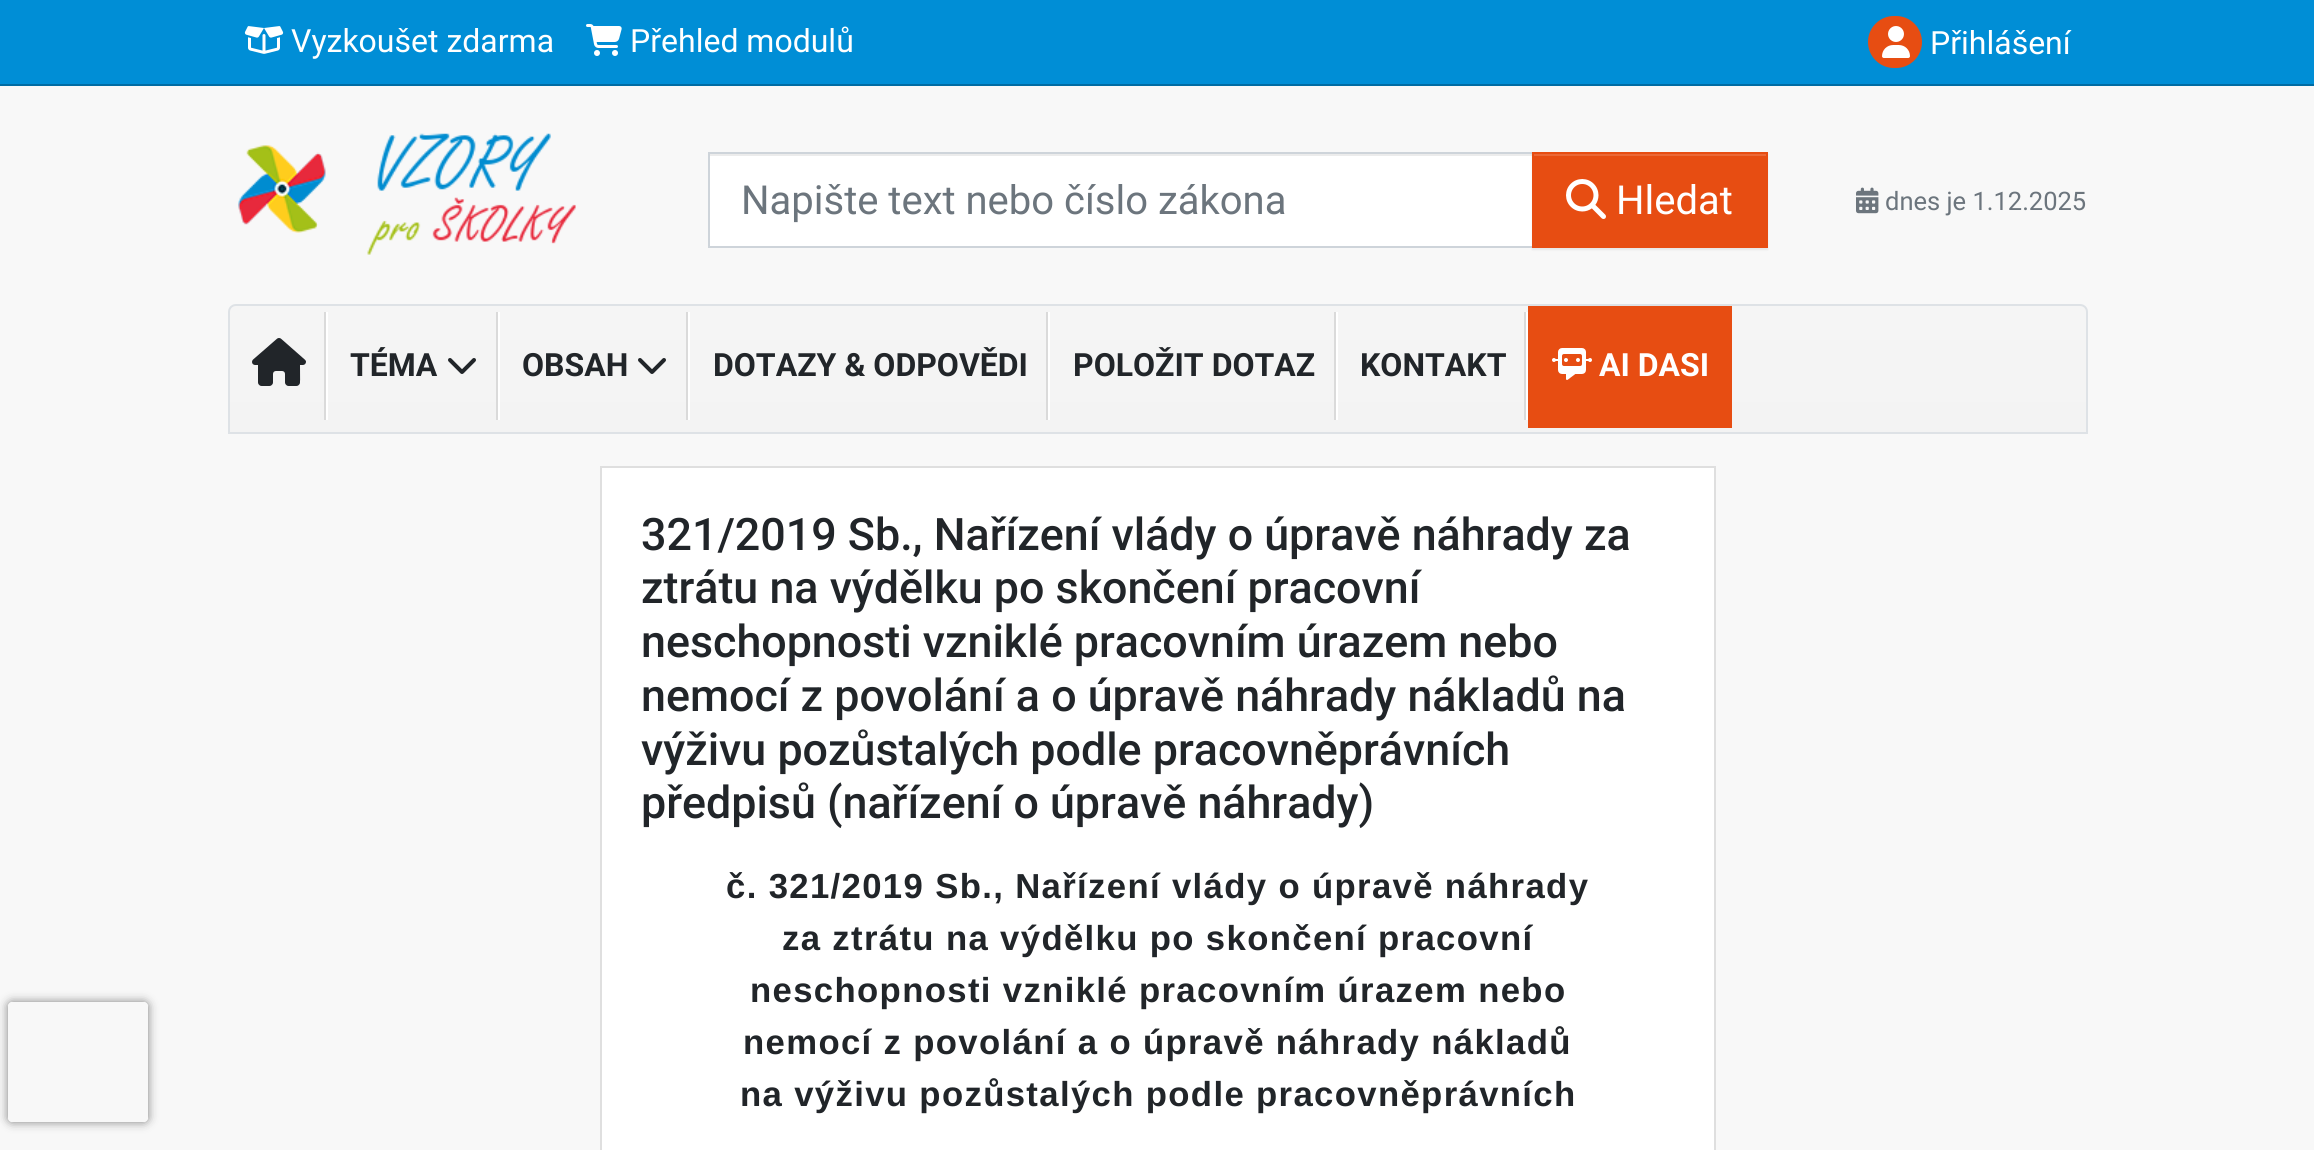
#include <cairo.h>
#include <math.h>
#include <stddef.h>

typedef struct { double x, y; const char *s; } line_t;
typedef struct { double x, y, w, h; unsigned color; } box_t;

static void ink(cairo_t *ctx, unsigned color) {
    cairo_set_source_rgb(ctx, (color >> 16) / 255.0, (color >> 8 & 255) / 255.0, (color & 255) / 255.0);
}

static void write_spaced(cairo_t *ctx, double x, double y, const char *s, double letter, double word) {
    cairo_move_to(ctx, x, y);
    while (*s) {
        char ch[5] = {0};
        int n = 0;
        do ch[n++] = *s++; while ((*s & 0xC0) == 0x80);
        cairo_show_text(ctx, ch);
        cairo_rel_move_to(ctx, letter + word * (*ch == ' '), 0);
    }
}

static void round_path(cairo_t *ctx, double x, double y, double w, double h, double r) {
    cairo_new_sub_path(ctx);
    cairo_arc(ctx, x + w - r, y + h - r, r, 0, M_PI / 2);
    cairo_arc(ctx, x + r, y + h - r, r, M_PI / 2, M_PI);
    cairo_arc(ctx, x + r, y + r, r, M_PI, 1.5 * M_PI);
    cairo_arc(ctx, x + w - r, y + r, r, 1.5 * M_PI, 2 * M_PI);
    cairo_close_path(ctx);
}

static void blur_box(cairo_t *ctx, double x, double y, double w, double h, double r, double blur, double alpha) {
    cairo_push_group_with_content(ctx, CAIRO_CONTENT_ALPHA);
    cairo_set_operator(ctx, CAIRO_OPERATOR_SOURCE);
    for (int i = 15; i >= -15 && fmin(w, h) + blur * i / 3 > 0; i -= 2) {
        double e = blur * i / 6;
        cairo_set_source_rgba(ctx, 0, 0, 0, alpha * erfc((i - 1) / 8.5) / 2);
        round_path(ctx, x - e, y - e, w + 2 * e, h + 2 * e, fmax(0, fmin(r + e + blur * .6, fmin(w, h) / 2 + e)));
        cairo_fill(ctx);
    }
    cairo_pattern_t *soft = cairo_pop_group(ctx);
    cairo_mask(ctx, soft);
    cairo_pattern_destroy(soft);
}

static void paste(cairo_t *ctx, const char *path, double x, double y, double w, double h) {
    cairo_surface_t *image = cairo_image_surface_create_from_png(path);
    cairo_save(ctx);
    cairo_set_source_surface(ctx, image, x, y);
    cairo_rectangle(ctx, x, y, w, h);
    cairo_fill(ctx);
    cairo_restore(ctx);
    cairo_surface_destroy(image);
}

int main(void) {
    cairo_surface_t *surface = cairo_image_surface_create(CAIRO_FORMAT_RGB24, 2314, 1150);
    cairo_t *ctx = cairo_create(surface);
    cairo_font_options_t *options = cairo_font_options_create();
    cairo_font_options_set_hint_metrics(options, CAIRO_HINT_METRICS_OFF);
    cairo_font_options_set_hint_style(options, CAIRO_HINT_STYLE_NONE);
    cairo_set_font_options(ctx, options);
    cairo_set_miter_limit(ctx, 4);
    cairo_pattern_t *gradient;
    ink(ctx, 0xF8F8F8);
    cairo_paint(ctx);
    cairo_save(ctx);
    cairo_set_fill_rule(ctx, CAIRO_FILL_RULE_EVEN_ODD);
    cairo_new_path(ctx);
    cairo_move_to(ctx, 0, 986);
    cairo_line_to(ctx, 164, 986);
    cairo_line_to(ctx, 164, 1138);
    cairo_line_to(ctx, 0, 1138);
    cairo_close_path(ctx);
    cairo_move_to(ctx, 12, 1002);
    cairo_line_to(ctx, 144, 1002);
    cairo_curve_to(ctx, 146, 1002, 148, 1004, 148, 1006);
    cairo_line_to(ctx, 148, 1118);
    cairo_curve_to(ctx, 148, 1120, 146, 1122, 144, 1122);
    cairo_line_to(ctx, 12, 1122);
    cairo_curve_to(ctx, 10, 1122, 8, 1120, 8, 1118);
    cairo_line_to(ctx, 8, 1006);
    cairo_curve_to(ctx, 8, 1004, 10, 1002, 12, 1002);
    cairo_close_path(ctx);
    cairo_clip(ctx);
    ink(ctx, 0x808080);
    blur_box(ctx, 8, 1002, 140, 120, 4, 5, 1);
    cairo_restore(ctx);
    ink(ctx, 0x008ED6);
    cairo_rectangle(ctx, 0, 0, 2314, 84);
    cairo_fill(ctx);
    ink(ctx, 0x006CA3);
    cairo_rectangle(ctx, 0, 84, 2314, 2);
    cairo_fill(ctx);
    paste(ctx, "media/1.png", 244, 26, 40, 28);
    cairo_select_font_face(ctx, "Roboto", CAIRO_FONT_SLANT_NORMAL, CAIRO_FONT_WEIGHT_NORMAL);
    cairo_set_font_size(ctx, 32);
    ink(ctx, 0xFFFFFF);
    cairo_move_to(ctx, 291, 52);
    cairo_show_text(ctx, "Vyzkoušet zdarma");
    paste(ctx, "media/2.png", 586, 24, 36, 32);
    cairo_move_to(ctx, 630, 52);
    cairo_show_text(ctx, "Přehled modulů");
    ink(ctx, 0xE74D12);
    round_path(ctx, 1868, 16, 54, 52, 26);
    cairo_fill(ctx);
    paste(ctx, "media/3.png", 1882, 26, 28, 32);
    ink(ctx, 0xFFFFFF);
    cairo_move_to(ctx, 1930, 54);
    cairo_show_text(ctx, "Přihlášení");
    paste(ctx, "media/4.png", 238, 133, 338, 122);
    cairo_rectangle(ctx, 710, 156, 822, 90);
    cairo_fill(ctx);
    ink(ctx, 0xECECEC);
    cairo_rectangle(ctx, 710, 154, 822, 2);
    cairo_fill(ctx);
    cairo_rectangle(ctx, 709, 153, 824, 94);
    ink(ctx, 0xCED4DA);
    cairo_stroke(ctx);
    cairo_set_font_size(ctx, 40);
    ink(ctx, 0x6C757D);
    cairo_move_to(ctx, 741, 214);
    cairo_show_text(ctx, "Napište text nebo číslo zákona");
    ink(ctx, 0x000000);
    blur_box(ctx, 1532, 154, 236, 96, 0, 1, 0.07);
    ink(ctx, 0xE74D12);
    cairo_rectangle(ctx, 1532, 152, 236, 96);
    cairo_fill(ctx);
    ink(ctx, 0xEB6836);
    cairo_rectangle(ctx, 1534, 154, 232, 2);
    cairo_fill(ctx);
    paste(ctx, "media/5.png", 1566, 179, 40, 40);
    ink(ctx, 0xFFFFFF);
    cairo_move_to(ctx, 1616, 214);
    cairo_show_text(ctx, "Hledat");
    paste(ctx, "media/6.png", 1856, 187, 23, 27);
    cairo_set_font_size(ctx, 25.5);
    ink(ctx, 0x6C757D);
    cairo_move_to(ctx, 1885, 210);
    cairo_show_text(ctx, "dnes je 1.12.2025");
    cairo_save(ctx);
    cairo_new_path(ctx);
    cairo_move_to(ctx, 236, 304);
    cairo_line_to(ctx, 2080, 304);
    cairo_curve_to(ctx, 2084.5, 304, 2088, 307.5, 2088, 312);
    cairo_line_to(ctx, 2088, 434);
    cairo_line_to(ctx, 228, 434);
    cairo_line_to(ctx, 228, 312);
    cairo_curve_to(ctx, 228, 307.5, 231.5, 304, 236, 304);
    cairo_close_path(ctx);
    cairo_clip(ctx);
    gradient = cairo_pattern_create_linear(1158, 306, 1158, 432);
    cairo_pattern_add_color_stop_rgba(gradient, 0, 0.961, 0.961, 0.961, 1);
    cairo_pattern_add_color_stop_rgba(gradient, 1, 0.953, 0.953, 0.953, 1);
    cairo_set_source(ctx, gradient);
    cairo_pattern_destroy(gradient);
    cairo_rectangle(ctx, 228, 306, 1860, 126);
    cairo_fill(ctx);
    cairo_restore(ctx);
    cairo_new_path(ctx);
    cairo_move_to(ctx, 236, 305);
    cairo_line_to(ctx, 2080, 305);
    cairo_curve_to(ctx, 2084, 305, 2087, 308, 2087, 312);
    cairo_line_to(ctx, 2087, 433);
    cairo_line_to(ctx, 229, 433);
    cairo_line_to(ctx, 229, 312);
    cairo_curve_to(ctx, 229, 308, 232, 305, 236, 305);
    cairo_close_path(ctx);
    ink(ctx, 0xDEE2E6);
    cairo_stroke(ctx);
    paste(ctx, "media/7.png", 252, 338, 54, 48);
    ink(ctx, 0xFFFFFF);
    cairo_rectangle(ctx, 326, 312, 2, 108);
    cairo_fill(ctx);
    ink(ctx, 0xDADADA);
    cairo_rectangle(ctx, 324, 312, 2, 108);
    cairo_fill(ctx);
    cairo_select_font_face(ctx, "Roboto", CAIRO_FONT_SLANT_NORMAL, CAIRO_FONT_WEIGHT_BOLD);
    cairo_set_font_size(ctx, 32);
    ink(ctx, 0x212529);
    cairo_move_to(ctx, 350, 376);
    cairo_show_text(ctx, "TÉMA");
    paste(ctx, "media/8.png", 448, 358, 28, 16);
    ink(ctx, 0xFFFFFF);
    cairo_rectangle(ctx, 498, 312, 2, 108);
    cairo_fill(ctx);
    ink(ctx, 0xDADADA);
    cairo_rectangle(ctx, 496, 312, 2, 108);
    cairo_fill(ctx);
    ink(ctx, 0x212529);
    cairo_move_to(ctx, 522, 376);
    cairo_show_text(ctx, "OBSAH");
    paste(ctx, "media/8.png", 638, 358, 28, 16);
    ink(ctx, 0xFFFFFF);
    cairo_rectangle(ctx, 688, 312, 2, 108);
    cairo_fill(ctx);
    ink(ctx, 0xDADADA);
    cairo_rectangle(ctx, 686, 312, 2, 108);
    cairo_fill(ctx);
    ink(ctx, 0x212529);
    cairo_move_to(ctx, 713, 376);
    cairo_show_text(ctx, "DOTAZY & ODPOVĚDI");
    ink(ctx, 0xFFFFFF);
    cairo_rectangle(ctx, 1048, 312, 2, 108);
    cairo_fill(ctx);
    ink(ctx, 0xDADADA);
    cairo_rectangle(ctx, 1046, 312, 2, 108);
    cairo_fill(ctx);
    ink(ctx, 0x212529);
    cairo_move_to(ctx, 1073, 376);
    cairo_show_text(ctx, "POLOŽIT DOTAZ");
    ink(ctx, 0xFFFFFF);
    cairo_rectangle(ctx, 1336, 312, 2, 108);
    cairo_fill(ctx);
    ink(ctx, 0xDADADA);
    cairo_rectangle(ctx, 1334, 312, 2, 108);
    cairo_fill(ctx);
    ink(ctx, 0x212529);
    cairo_move_to(ctx, 1360, 376);
    cairo_show_text(ctx, "KONTAKT");
    {
        static const box_t items[] = {
            {1526, 312, 2, 108, 0xFFFFFF},
            {1524, 312, 2, 108, 0xDADADA},
            {1528, 306, 204, 122, 0xE74D12},
        };
        for (size_t i = 0; i < sizeof items / sizeof *items; i++) {
            ink(ctx, items[i].color);
            cairo_rectangle(ctx, items[i].x, items[i].y, items[i].w, items[i].h);
            cairo_fill(ctx);
        }
    }
    paste(ctx, "media/9.png", 1552, 348, 40, 32);
    ink(ctx, 0xFFFFFF);
    cairo_move_to(ctx, 1599, 376);
    cairo_show_text(ctx, "AI DASI");
    cairo_rectangle(ctx, 601, 467, 1114, 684);
    cairo_fill_preserve(ctx);
    ink(ctx, 0xDFDFDF);
    cairo_stroke(ctx);
    cairo_select_font_face(ctx, "Roboto Medium", CAIRO_FONT_SLANT_NORMAL, CAIRO_FONT_WEIGHT_NORMAL);
    cairo_set_font_size(ctx, 44.8);
    ink(ctx, 0x212529);
    {
        static const line_t items[] = {
            {641, 550, "321/2019 Sb., Nařízení vlády o úpravě náhrady za"},
            {641, 603, "ztrátu na výdělku po skončení pracovní"},
            {641, 657, "neschopnosti vzniklé pracovním úrazem nebo"},
            {641, 711, "nemocí z povolání a o úpravě náhrady nákladů na"},
            {641, 765, "výživu pozůstalých podle pracovněprávních"},
            {641, 818, "předpisů (nařízení o úpravě náhrady)"},
        };
        for (size_t i = 0; i < sizeof items / sizeof *items; i++) {
            cairo_move_to(ctx, items[i].x, items[i].y);
            cairo_show_text(ctx, items[i].s);
        }
    }
    cairo_select_font_face(ctx, "Liberation Sans", CAIRO_FONT_SLANT_NORMAL, CAIRO_FONT_WEIGHT_BOLD);
    cairo_set_font_size(ctx, 34.7);
    {
        static const line_t items[] = {
            {726, 898, "č. 321/2019 Sb., Nařízení vlády o úpravě náhrady"},
            {782, 950, "za ztrátu na výdělku po skončení pracovní"},
            {750, 1002, "neschopnosti vzniklé pracovním úrazem nebo"},
            {743, 1054, "nemocí z povolání a o úpravě náhrady nákladů"},
            {740, 1106, "na výživu pozůstalých podle pracovněprávních"},
        };
        for (size_t i = 0; i < sizeof items / sizeof *items; i++) {
            write_spaced(ctx, items[i].x, items[i].y, items[i].s, 1.35, 0);
        }
    }
    cairo_surface_write_to_png(surface, "image.png");
    cairo_font_options_destroy(options);
    cairo_destroy(ctx);
    cairo_surface_destroy(surface);
    return 0;
}
